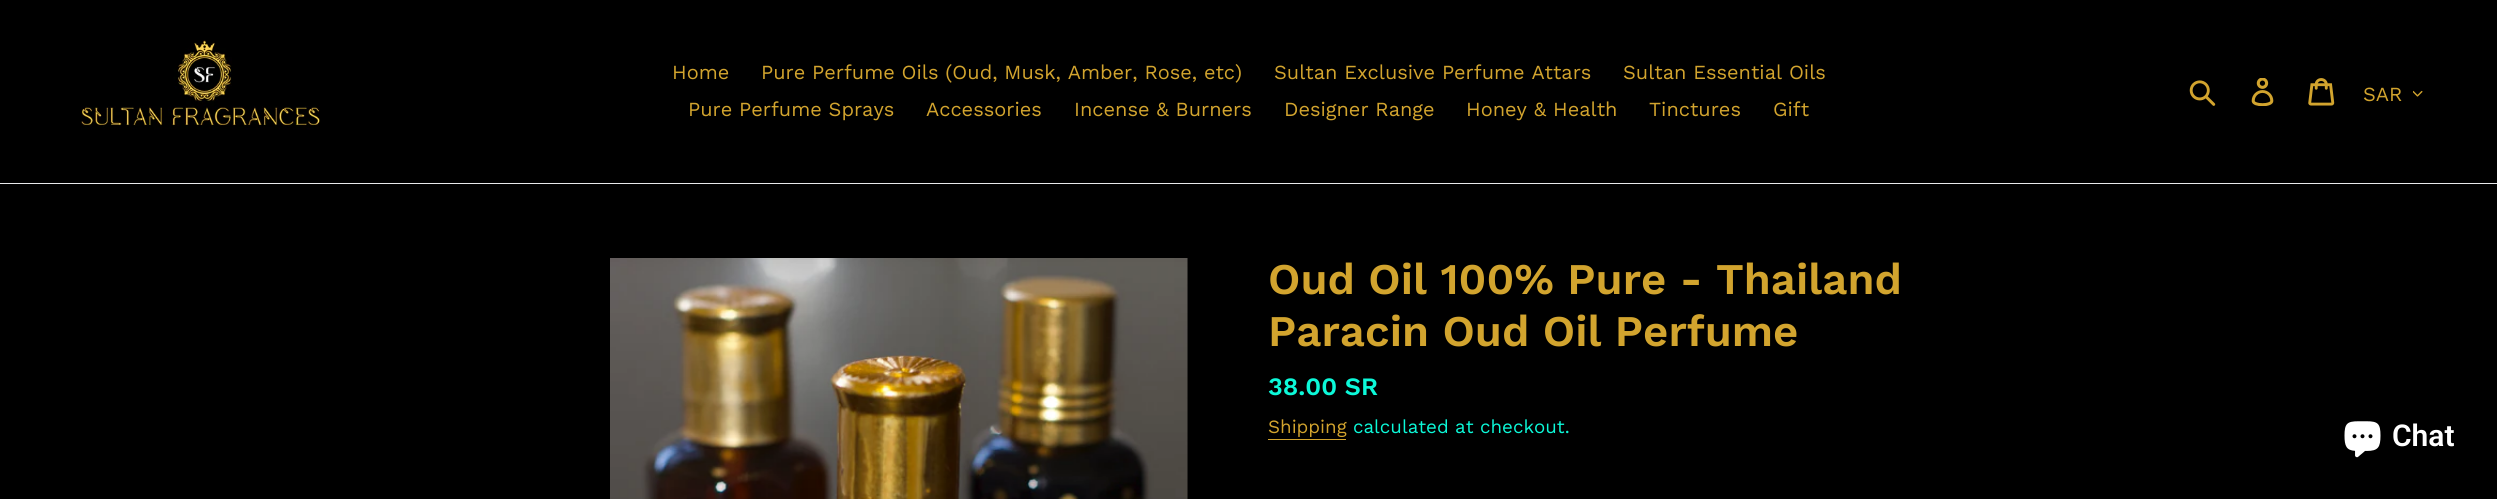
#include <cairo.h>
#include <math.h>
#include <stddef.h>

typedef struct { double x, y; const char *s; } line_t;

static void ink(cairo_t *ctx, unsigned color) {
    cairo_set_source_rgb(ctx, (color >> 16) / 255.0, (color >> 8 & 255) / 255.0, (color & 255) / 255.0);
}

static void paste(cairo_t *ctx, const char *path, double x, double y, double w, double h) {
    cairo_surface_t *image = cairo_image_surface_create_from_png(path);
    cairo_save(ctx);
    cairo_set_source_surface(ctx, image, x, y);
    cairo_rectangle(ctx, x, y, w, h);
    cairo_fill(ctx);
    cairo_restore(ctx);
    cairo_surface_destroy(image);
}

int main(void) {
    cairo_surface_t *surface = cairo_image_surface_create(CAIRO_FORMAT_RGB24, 2497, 499);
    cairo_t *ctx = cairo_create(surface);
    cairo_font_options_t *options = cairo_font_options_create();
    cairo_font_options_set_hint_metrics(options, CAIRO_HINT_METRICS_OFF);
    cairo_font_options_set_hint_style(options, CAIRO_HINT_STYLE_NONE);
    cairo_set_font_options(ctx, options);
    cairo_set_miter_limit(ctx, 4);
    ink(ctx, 0x000000);
    cairo_paint(ctx);
    ink(ctx, 0xE8E9EB);
    cairo_rectangle(ctx, 0, 183, 2497, 1);
    cairo_fill(ctx);
    paste(ctx, "media/1.png", 81, 40, 239, 90);
    cairo_select_font_face(ctx, "Work Sans", CAIRO_FONT_SLANT_NORMAL, CAIRO_FONT_WEIGHT_NORMAL);
    cairo_set_font_size(ctx, 20);
    ink(ctx, 0xD2A42E);
    {
        static const line_t items[] = {
            {672, 79, "Home"},
            {761, 79, "Pure Perfume Oils (Oud, Musk, Amber, Rose, etc)"},
            {1274, 79, "Sultan Exclusive Perfume Attars"},
            {1623, 79, "Sultan Essential Oils"},
            {688, 116, "Pure Perfume Sprays"},
            {926, 116, "Accessories"},
            {1074, 116, "Incense & Burners"},
            {1284, 116, "Designer Range"},
            {1466, 116, "Honey & Health"},
            {1649, 116, "Tinctures"},
            {1773, 116, "Gift"},
        };
        for (size_t i = 0; i < sizeof items / sizeof *items; i++) {
            cairo_move_to(ctx, items[i].x, items[i].y);
            cairo_show_text(ctx, items[i].s);
        }
    }
    paste(ctx, "media/2.png", 2189, 80, 27, 26);
    paste(ctx, "media/3.png", 2251, 78, 23, 28);
    paste(ctx, "media/4.png", 2308, 78, 27, 28);
    cairo_move_to(ctx, 2363, 101);
    cairo_show_text(ctx, "SAR");
    paste(ctx, "media/5.png", 2413, 90, 10, 7);
    paste(ctx, "media/6.png", 610, 258, 578, 241);
    cairo_select_font_face(ctx, "Work Sans SemiBold", CAIRO_FONT_SLANT_NORMAL, CAIRO_FONT_WEIGHT_NORMAL);
    cairo_set_font_size(ctx, 43.75);
    cairo_move_to(ctx, 1268, 294);
    cairo_show_text(ctx, "Oud Oil 100% Pure - Thailand");
    cairo_move_to(ctx, 1268, 346);
    cairo_show_text(ctx, "Paracin Oud Oil Perfume");
    cairo_set_font_size(ctx, 25);
    ink(ctx, 0x0CF9D9);
    cairo_move_to(ctx, 1268, 395);
    cairo_show_text(ctx, "38.00 SR");
    cairo_select_font_face(ctx, "Work Sans", CAIRO_FONT_SLANT_NORMAL, CAIRO_FONT_WEIGHT_NORMAL);
    cairo_set_font_size(ctx, 18.75);
    ink(ctx, 0xD2A42E);
    cairo_move_to(ctx, 1268, 433);
    cairo_show_text(ctx, "Shipping");
    cairo_rectangle(ctx, 1268, 439, 78, 1);
    cairo_fill(ctx);
    ink(ctx, 0x0CF9D9);
    cairo_move_to(ctx, 1353, 433);
    cairo_show_text(ctx, "calculated at checkout.");
    paste(ctx, "media/7.png", 2344, 421, 37, 37);
    cairo_select_font_face(ctx, "Roboto SemiBold", CAIRO_FONT_SLANT_NORMAL, CAIRO_FONT_WEIGHT_NORMAL);
    cairo_set_font_size(ctx, 30);
    ink(ctx, 0xFFFFFF);
    cairo_move_to(ctx, 2392, 446);
    cairo_show_text(ctx, "Chat");
    cairo_surface_write_to_png(surface, "image.png");
    cairo_font_options_destroy(options);
    cairo_destroy(ctx);
    cairo_surface_destroy(surface);
    return 0;
}
